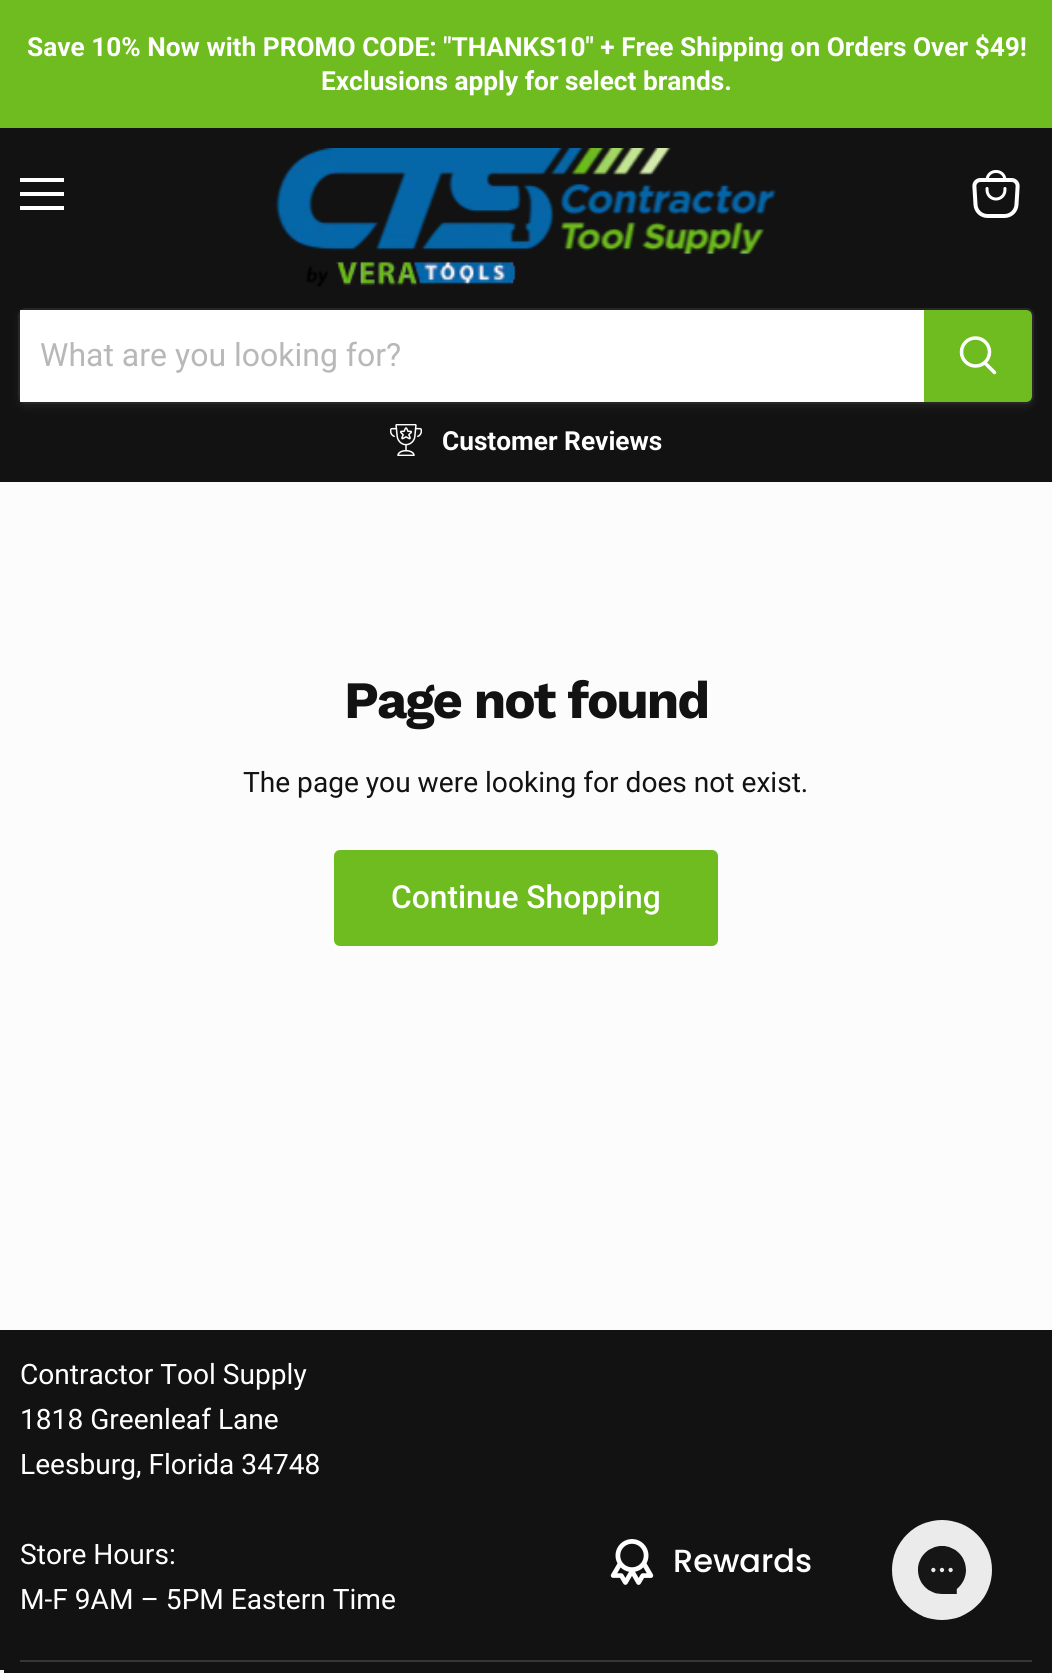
#include <cairo.h>
#include <math.h>
#include <stddef.h>

typedef struct { double x, y; const char *s; } line_t;
typedef struct { double x, y, w, h; unsigned color; } box_t;

static void ink(cairo_t *ctx, unsigned color) {
    cairo_set_source_rgb(ctx, (color >> 16) / 255.0, (color >> 8 & 255) / 255.0, (color & 255) / 255.0);
}

static void write_spaced(cairo_t *ctx, double x, double y, const char *s, double letter, double word) {
    cairo_move_to(ctx, x, y);
    while (*s) {
        char ch[5] = {0};
        int n = 0;
        do ch[n++] = *s++; while ((*s & 0xC0) == 0x80);
        cairo_show_text(ctx, ch);
        cairo_rel_move_to(ctx, letter + word * (*ch == ' '), 0);
    }
}

static void round_path(cairo_t *ctx, double x, double y, double w, double h, double r) {
    cairo_new_sub_path(ctx);
    cairo_arc(ctx, x + w - r, y + h - r, r, 0, M_PI / 2);
    cairo_arc(ctx, x + r, y + h - r, r, M_PI / 2, M_PI);
    cairo_arc(ctx, x + r, y + r, r, M_PI, 1.5 * M_PI);
    cairo_arc(ctx, x + w - r, y + r, r, 1.5 * M_PI, 2 * M_PI);
    cairo_close_path(ctx);
}

static void blur_box(cairo_t *ctx, double x, double y, double w, double h, double r, double blur, double alpha) {
    cairo_push_group_with_content(ctx, CAIRO_CONTENT_ALPHA);
    cairo_set_operator(ctx, CAIRO_OPERATOR_SOURCE);
    for (int i = 15; i >= -15 && fmin(w, h) + blur * i / 3 > 0; i -= 2) {
        double e = blur * i / 6;
        cairo_set_source_rgba(ctx, 0, 0, 0, alpha * erfc((i - 1) / 8.5) / 2);
        round_path(ctx, x - e, y - e, w + 2 * e, h + 2 * e, fmax(0, fmin(r + e + blur * .6, fmin(w, h) / 2 + e)));
        cairo_fill(ctx);
    }
    cairo_pattern_t *soft = cairo_pop_group(ctx);
    cairo_mask(ctx, soft);
    cairo_pattern_destroy(soft);
}

static void paste(cairo_t *ctx, const char *path, double x, double y, double w, double h) {
    cairo_surface_t *image = cairo_image_surface_create_from_png(path);
    cairo_save(ctx);
    cairo_set_source_surface(ctx, image, x, y);
    cairo_rectangle(ctx, x, y, w, h);
    cairo_fill(ctx);
    cairo_restore(ctx);
    cairo_surface_destroy(image);
}

int main(void) {
    cairo_surface_t *surface = cairo_image_surface_create(CAIRO_FORMAT_RGB24, 1052, 1673);
    cairo_t *ctx = cairo_create(surface);
    cairo_font_options_t *options = cairo_font_options_create();
    cairo_font_options_set_hint_metrics(options, CAIRO_HINT_METRICS_OFF);
    cairo_font_options_set_hint_style(options, CAIRO_HINT_STYLE_NONE);
    cairo_set_font_options(ctx, options);
    cairo_set_miter_limit(ctx, 4);
    ink(ctx, 0xFCFCFC);
    cairo_paint(ctx);
    ink(ctx, 0x6EBC20);
    cairo_rectangle(ctx, 0, 0, 1052, 128);
    cairo_fill(ctx);
    cairo_select_font_face(ctx, "Roboto", CAIRO_FONT_SLANT_NORMAL, CAIRO_FONT_WEIGHT_BOLD);
    cairo_set_font_size(ctx, 26.25);
    ink(ctx, 0xFFFFFF);
    cairo_move_to(ctx, 27, 56);
    cairo_show_text(ctx, "Save 10% Now with PROMO CODE: \"THANKS10\" + Free Shipping on Orders Over $49!");
    cairo_move_to(ctx, 321, 90);
    cairo_show_text(ctx, "Exclusions apply for select brands.");
    {
        static const box_t items[] = {
            {0, 128, 1052, 354, 0x121212},
            {20, 178, 44, 4, 0xFFFFFF},
            {20, 192, 44, 4, 0xFFFFFF},
            {20, 206, 44, 4, 0xFFFFFF},
        };
        for (size_t i = 0; i < sizeof items / sizeof *items; i++) {
            ink(ctx, items[i].color);
            cairo_rectangle(ctx, items[i].x, items[i].y, items[i].w, items[i].h);
            cairo_fill(ctx);
        }
    }
    paste(ctx, "media/1.png", 972, 170, 48, 48);
    paste(ctx, "media/2.png", 276, 148, 500, 139);
    cairo_save(ctx);
    cairo_set_fill_rule(ctx, CAIRO_FILL_RULE_EVEN_ODD);
    cairo_new_path(ctx);
    cairo_move_to(ctx, 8, 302);
    cairo_line_to(ctx, 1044, 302);
    cairo_line_to(ctx, 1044, 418);
    cairo_line_to(ctx, 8, 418);
    cairo_close_path(ctx);
    cairo_move_to(ctx, 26, 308);
    cairo_line_to(ctx, 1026, 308);
    cairo_curve_to(ctx, 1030.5, 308, 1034, 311.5, 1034, 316);
    cairo_line_to(ctx, 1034, 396);
    cairo_curve_to(ctx, 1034, 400.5, 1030.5, 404, 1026, 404);
    cairo_line_to(ctx, 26, 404);
    cairo_curve_to(ctx, 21.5, 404, 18, 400.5, 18, 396);
    cairo_line_to(ctx, 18, 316);
    cairo_curve_to(ctx, 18, 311.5, 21.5, 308, 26, 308);
    cairo_close_path(ctx);
    cairo_clip(ctx);
    ink(ctx, 0x808080);
    blur_box(ctx, 18, 312, 1016, 96, 8, 3, 0.11);
    cairo_restore(ctx);
    round_path(ctx, 19, 309, 1014, 94, 7);
    cairo_set_source_rgba(ctx, 0.502, 0.502, 0.502, 0.2);
    cairo_stroke(ctx);
    ink(ctx, 0xFFFFFF);
    cairo_rectangle(ctx, 20, 310, 904, 92);
    cairo_fill(ctx);
    cairo_select_font_face(ctx, "Roboto", CAIRO_FONT_SLANT_NORMAL, CAIRO_FONT_WEIGHT_NORMAL);
    cairo_set_font_size(ctx, 32);
    ink(ctx, 0xB8B8B8);
    cairo_move_to(ctx, 40, 366);
    cairo_show_text(ctx, "What are you looking for?");
    ink(ctx, 0x6EBC20);
    cairo_new_path(ctx);
    cairo_move_to(ctx, 925, 311);
    cairo_line_to(ctx, 1026, 311);
    cairo_curve_to(ctx, 1029, 311, 1031, 313, 1031, 316);
    cairo_line_to(ctx, 1031, 396);
    cairo_curve_to(ctx, 1031, 399, 1029, 401, 1026, 401);
    cairo_line_to(ctx, 925, 401);
    cairo_close_path(ctx);
    cairo_fill_preserve(ctx);
    cairo_stroke(ctx);
    cairo_new_path(ctx);
    cairo_move_to(ctx, 994.5, 372.5);
    cairo_line_to(ctx, 985, 363);
    ink(ctx, 0xFFFFFF);
    cairo_set_line_width(ctx, 3.5);
    cairo_set_line_cap(ctx, CAIRO_LINE_CAP_ROUND);
    cairo_stroke(ctx);
    cairo_arc(ctx, 975.5, 352, 14, 0, 2 * M_PI);
    cairo_set_line_cap(ctx, CAIRO_LINE_CAP_BUTT);
    cairo_stroke(ctx);
    paste(ctx, "media/3.png", 390, 424, 32, 32);
    cairo_select_font_face(ctx, "Roboto", CAIRO_FONT_SLANT_NORMAL, CAIRO_FONT_WEIGHT_BOLD);
    cairo_set_font_size(ctx, 26.25);
    cairo_move_to(ctx, 442, 450);
    cairo_show_text(ctx, "Customer Reviews");
    cairo_select_font_face(ctx, "Work Sans", CAIRO_FONT_SLANT_NORMAL, CAIRO_FONT_WEIGHT_BOLD);
    cairo_set_font_size(ctx, 52.5);
    ink(ctx, 0x121212);
    write_spaced(ctx, 344, 718, "Page not found", -2.1, 0);
    cairo_select_font_face(ctx, "Roboto", CAIRO_FONT_SLANT_NORMAL, CAIRO_FONT_WEIGHT_NORMAL);
    cairo_set_font_size(ctx, 28.1);
    cairo_move_to(ctx, 243, 792);
    cairo_show_text(ctx, "The page you were looking for does not exist.");
    ink(ctx, 0x6EBC20);
    round_path(ctx, 335, 851, 382, 94, 5);
    cairo_fill_preserve(ctx);
    cairo_set_line_width(ctx, 2);
    cairo_stroke(ctx);
    cairo_select_font_face(ctx, "Roboto Medium", CAIRO_FONT_SLANT_NORMAL, CAIRO_FONT_WEIGHT_NORMAL);
    cairo_set_font_size(ctx, 31.75);
    ink(ctx, 0xFFFFFF);
    cairo_move_to(ctx, 391, 908);
    cairo_show_text(ctx, "Continue Shopping");
    ink(ctx, 0x121212);
    cairo_rectangle(ctx, 0, 1330, 1052, 343);
    cairo_fill(ctx);
    ink(ctx, 0x363636);
    cairo_rectangle(ctx, 20, 1660, 1012, 2);
    cairo_fill(ctx);
    cairo_select_font_face(ctx, "Roboto", CAIRO_FONT_SLANT_NORMAL, CAIRO_FONT_WEIGHT_NORMAL);
    cairo_set_font_size(ctx, 28.1);
    ink(ctx, 0xFFFFFF);
    {
        static const line_t items[] = {
            {20, 1384, "Contractor Tool Supply"},
            {20, 1429, "1818 Greenleaf Lane"},
            {20, 1474, "Leesburg, Florida 34748"},
            {20, 1564, "Store Hours:"},
            {20, 1609, "M-F 9AM – 5PM Eastern Time"},
        };
        for (size_t i = 0; i < sizeof items / sizeof *items; i++) {
            cairo_move_to(ctx, items[i].x, items[i].y);
            cairo_show_text(ctx, items[i].s);
        }
    }
    paste(ctx, "media/4.png", 610, 1539, 44, 46);
    cairo_select_font_face(ctx, "Poppins Medium", CAIRO_FONT_SLANT_NORMAL, CAIRO_FONT_WEIGHT_NORMAL);
    cairo_set_font_size(ctx, 32);
    cairo_move_to(ctx, 673, 1572);
    cairo_show_text(ctx, "Rewards");
    paste(ctx, "media/5.png", 892, 1520, 100, 100);
    ink(ctx, 0xF5F5F5);
    cairo_rectangle(ctx, 0, 1670, 4, 3);
    cairo_fill(ctx);
    cairo_surface_write_to_png(surface, "image.png");
    cairo_font_options_destroy(options);
    cairo_destroy(ctx);
    cairo_surface_destroy(surface);
    return 0;
}
